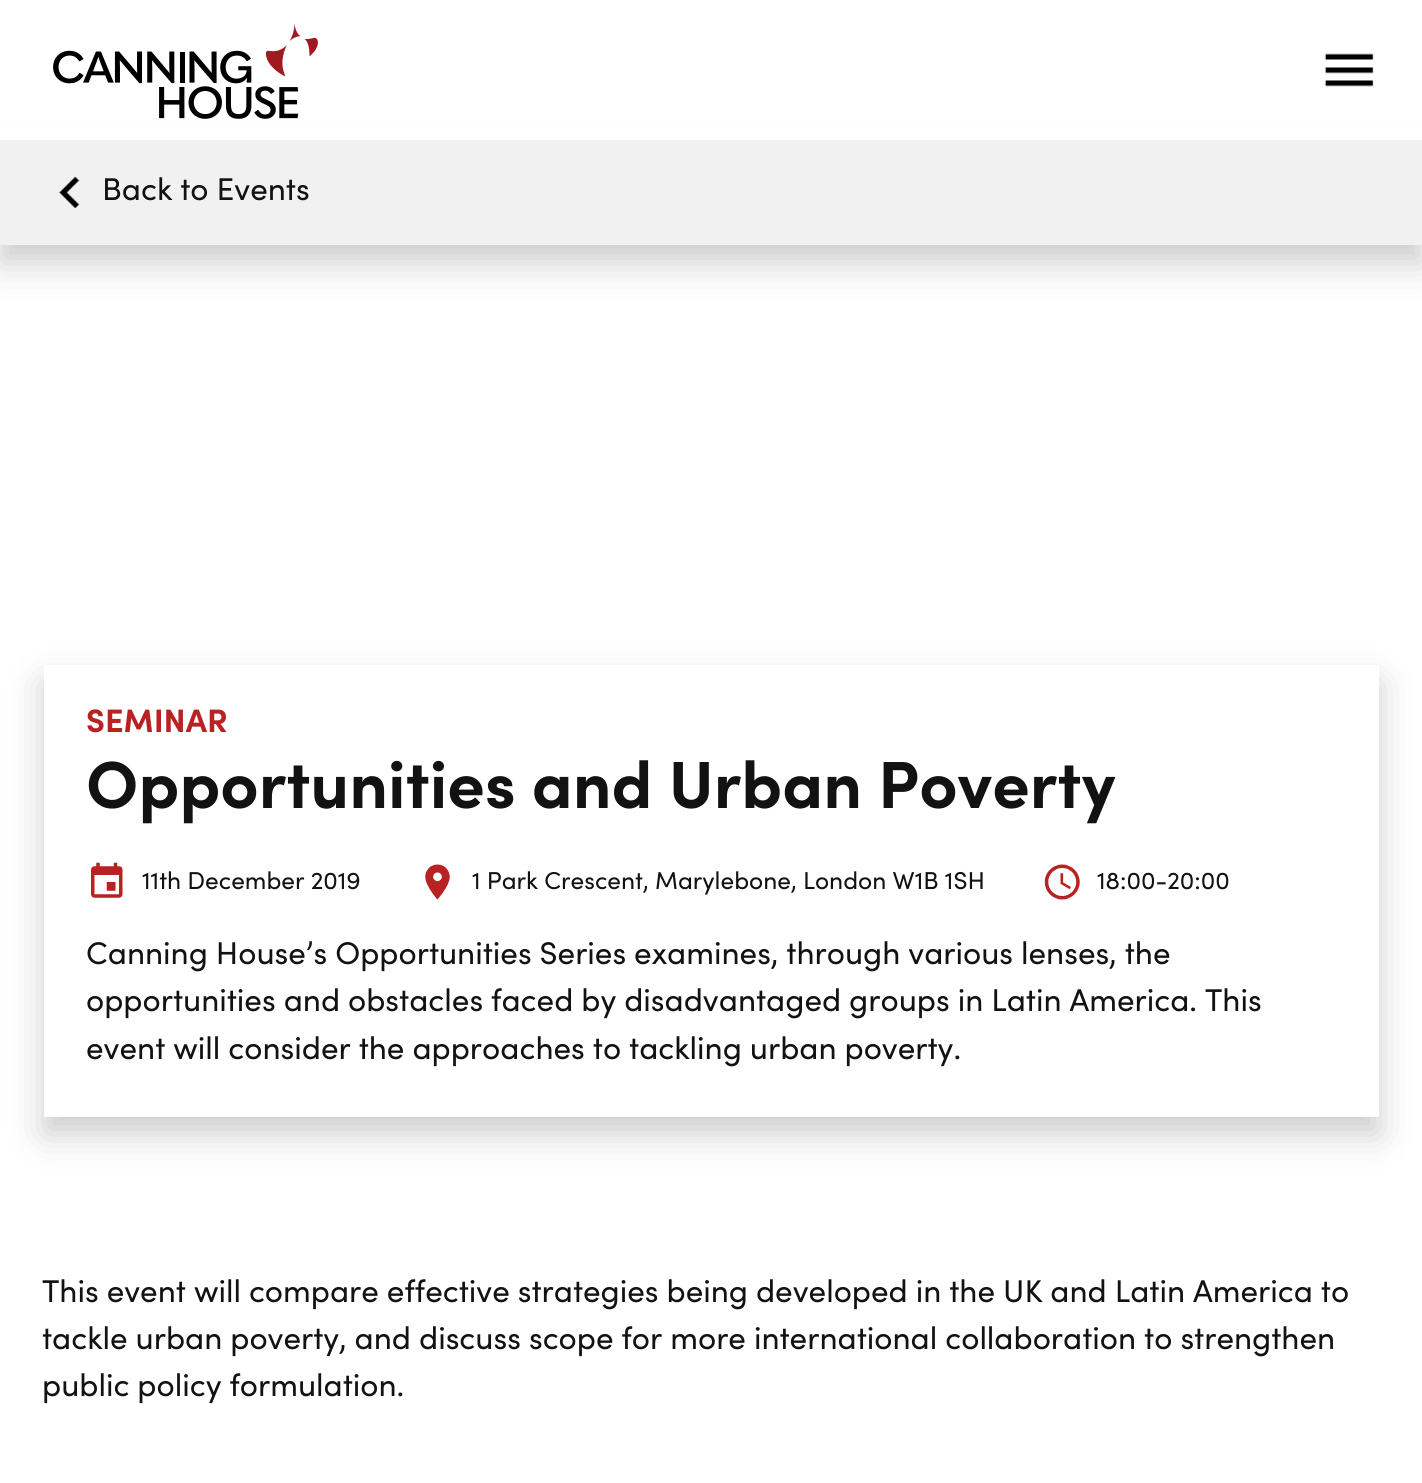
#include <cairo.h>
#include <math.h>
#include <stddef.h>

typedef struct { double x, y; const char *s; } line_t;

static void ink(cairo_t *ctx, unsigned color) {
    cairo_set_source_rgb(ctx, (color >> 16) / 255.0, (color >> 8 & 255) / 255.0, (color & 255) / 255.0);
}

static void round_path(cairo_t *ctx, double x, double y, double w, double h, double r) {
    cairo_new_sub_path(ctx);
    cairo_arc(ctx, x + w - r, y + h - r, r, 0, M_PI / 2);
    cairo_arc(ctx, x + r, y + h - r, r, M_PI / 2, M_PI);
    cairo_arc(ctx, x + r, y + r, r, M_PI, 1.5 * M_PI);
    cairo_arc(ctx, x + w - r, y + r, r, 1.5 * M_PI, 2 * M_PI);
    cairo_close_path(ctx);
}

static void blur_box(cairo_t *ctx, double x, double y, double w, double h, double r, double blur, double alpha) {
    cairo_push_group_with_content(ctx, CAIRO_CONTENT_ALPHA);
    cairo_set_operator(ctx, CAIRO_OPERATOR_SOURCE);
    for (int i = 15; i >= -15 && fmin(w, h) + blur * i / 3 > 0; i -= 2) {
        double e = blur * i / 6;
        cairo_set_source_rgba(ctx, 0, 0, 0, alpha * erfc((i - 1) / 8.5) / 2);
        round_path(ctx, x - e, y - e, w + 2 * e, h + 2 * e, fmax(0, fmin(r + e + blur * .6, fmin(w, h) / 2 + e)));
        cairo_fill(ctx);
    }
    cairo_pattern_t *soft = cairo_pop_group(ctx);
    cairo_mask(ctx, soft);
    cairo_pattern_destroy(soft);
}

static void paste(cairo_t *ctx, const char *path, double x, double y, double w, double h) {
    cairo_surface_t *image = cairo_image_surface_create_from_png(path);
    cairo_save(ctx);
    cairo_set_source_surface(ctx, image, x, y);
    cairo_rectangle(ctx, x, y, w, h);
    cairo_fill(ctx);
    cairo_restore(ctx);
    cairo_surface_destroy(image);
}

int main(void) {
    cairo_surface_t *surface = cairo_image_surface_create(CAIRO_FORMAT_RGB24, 1422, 1483);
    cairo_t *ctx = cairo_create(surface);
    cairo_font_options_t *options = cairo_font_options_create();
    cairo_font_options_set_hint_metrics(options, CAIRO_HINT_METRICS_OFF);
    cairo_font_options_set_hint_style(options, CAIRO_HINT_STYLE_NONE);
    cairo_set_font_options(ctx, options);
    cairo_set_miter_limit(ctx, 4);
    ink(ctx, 0xFFFFFF);
    cairo_paint(ctx);
    ink(ctx, 0x000000);
    blur_box(ctx, 0, 158, 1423, 105, 0, 17.5, 0.2);
    ink(ctx, 0xFFFFFF);
    cairo_rectangle(ctx, 0, 129, 1422, 11);
    cairo_fill(ctx);
    paste(ctx, "media/1.png", 53, 23, 265, 96);
    paste(ctx, "media/2.png", 1324, 53, 50, 34);
    ink(ctx, 0xF1F1F1);
    cairo_rectangle(ctx, 0, 140, 1422, 105);
    cairo_fill(ctx);
    paste(ctx, "media/3.png", 59, 176, 21, 33);
    cairo_select_font_face(ctx, "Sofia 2", CAIRO_FONT_SLANT_NORMAL, CAIRO_FONT_WEIGHT_NORMAL);
    cairo_set_font_size(ctx, 31.5);
    ink(ctx, 0x121212);
    cairo_move_to(ctx, 102, 200);
    cairo_show_text(ctx, "Back to Events");
    ink(ctx, 0x000000);
    blur_box(ctx, 44, 683, 1335, 451, 0, 17.5, 0.2);
    ink(ctx, 0xFFFFFF);
    cairo_rectangle(ctx, 44, 665, 1335, 452);
    cairo_fill(ctx);
    cairo_select_font_face(ctx, "Sofia", CAIRO_FONT_SLANT_NORMAL, CAIRO_FONT_WEIGHT_NORMAL);
    cairo_set_font_size(ctx, 32.5);
    ink(ctx, 0xB92222);
    cairo_move_to(ctx, 86, 732);
    cairo_show_text(ctx, "SEMINAR");
    cairo_set_font_size(ctx, 66.75);
    ink(ctx, 0x121212);
    cairo_move_to(ctx, 86, 808);
    cairo_show_text(ctx, "Opportunities and Urban Poverty");
    paste(ctx, "media/4.png", 91, 862, 32, 36);
    cairo_select_font_face(ctx, "Sofia 2", CAIRO_FONT_SLANT_NORMAL, CAIRO_FONT_WEIGHT_NORMAL);
    cairo_set_font_size(ctx, 24.5);
    cairo_move_to(ctx, 142, 889);
    cairo_show_text(ctx, "11th December 2019");
    paste(ctx, "media/5.png", 425, 864, 25, 36);
    cairo_move_to(ctx, 472, 889);
    cairo_show_text(ctx, "1 Park Crescent, Marylebone, London W1B 1SH");
    paste(ctx, "media/6.png", 1044, 864, 36, 36);
    cairo_move_to(ctx, 1097, 889);
    cairo_show_text(ctx, "18:00-20:00");
    cairo_set_font_size(ctx, 31.5);
    {
        static const line_t items[] = {
            {86, 964, "Canning House’s Opportunities Series examines, through various lenses, the"},
            {86, 1011, "opportunities and obstacles faced by disadvantaged groups in Latin America. This"},
            {86, 1059, "event will consider the approaches to tackling urban poverty."},
            {42, 1302, "This event will compare effective strategies being developed in the UK and Latin America to"},
            {42, 1349, "tackle urban poverty, and discuss scope for more international collaboration to strengthen"},
            {42, 1396, "public policy formulation."},
        };
        for (size_t i = 0; i < sizeof items / sizeof *items; i++) {
            cairo_move_to(ctx, items[i].x, items[i].y);
            cairo_show_text(ctx, items[i].s);
        }
    }
    cairo_surface_write_to_png(surface, "image.png");
    cairo_font_options_destroy(options);
    cairo_destroy(ctx);
    cairo_surface_destroy(surface);
    return 0;
}
